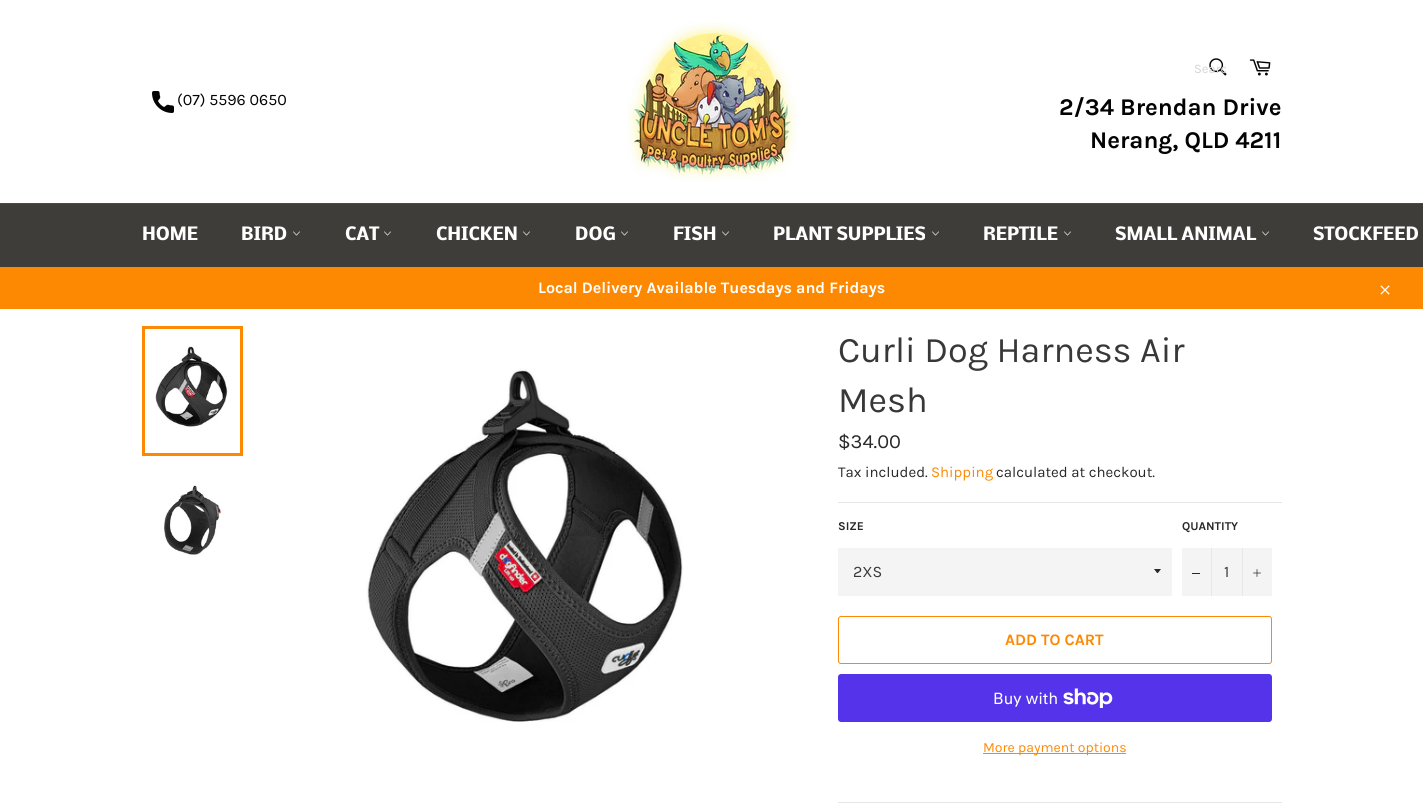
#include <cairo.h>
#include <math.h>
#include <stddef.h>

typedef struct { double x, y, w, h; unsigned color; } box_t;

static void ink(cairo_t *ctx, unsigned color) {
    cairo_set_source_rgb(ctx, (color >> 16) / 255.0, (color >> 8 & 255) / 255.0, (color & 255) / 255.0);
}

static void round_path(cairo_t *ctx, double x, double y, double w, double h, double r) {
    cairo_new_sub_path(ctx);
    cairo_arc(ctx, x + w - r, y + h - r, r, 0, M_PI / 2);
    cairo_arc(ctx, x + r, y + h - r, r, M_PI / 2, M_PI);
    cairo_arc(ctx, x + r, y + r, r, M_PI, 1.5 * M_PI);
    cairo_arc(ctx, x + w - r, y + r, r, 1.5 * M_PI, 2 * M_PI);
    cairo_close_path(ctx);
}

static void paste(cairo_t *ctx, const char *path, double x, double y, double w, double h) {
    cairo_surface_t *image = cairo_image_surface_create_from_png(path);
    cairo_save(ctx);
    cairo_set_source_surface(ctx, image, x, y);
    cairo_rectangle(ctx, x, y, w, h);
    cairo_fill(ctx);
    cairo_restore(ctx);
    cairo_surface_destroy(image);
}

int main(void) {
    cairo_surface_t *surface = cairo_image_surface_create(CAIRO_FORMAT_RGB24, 1423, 811);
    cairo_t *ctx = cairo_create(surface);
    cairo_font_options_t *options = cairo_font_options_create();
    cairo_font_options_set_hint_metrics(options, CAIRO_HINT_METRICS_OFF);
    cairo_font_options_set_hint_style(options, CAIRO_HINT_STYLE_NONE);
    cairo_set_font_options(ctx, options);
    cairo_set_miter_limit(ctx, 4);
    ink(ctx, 0xFFFFFF);
    cairo_paint(ctx);
    paste(ctx, "media/1.png", 152, 91, 22, 22);
    cairo_select_font_face(ctx, "Karla", CAIRO_FONT_SLANT_NORMAL, CAIRO_FONT_WEIGHT_NORMAL);
    cairo_set_font_size(ctx, 16);
    ink(ctx, 0x030303);
    cairo_move_to(ctx, 177, 105);
    cairo_show_text(ctx, "(07) 5596 0650");
    paste(ctx, "media/2.png", 627, 22, 170, 159);
    paste(ctx, "media/3.png", 1209, 58, 18, 18);
    cairo_save(ctx);
    cairo_rectangle(ctx, 1194, 61, 32, 15);
    cairo_clip(ctx);
    cairo_set_font_size(ctx, 13);
    ink(ctx, 0xD5D5D5);
    cairo_move_to(ctx, 1194, 73);
    cairo_show_text(ctx, "Searc");
    cairo_restore(ctx);
    paste(ctx, "media/4.png", 1249, 59, 22, 17);
    cairo_select_font_face(ctx, "Karla", CAIRO_FONT_SLANT_NORMAL, CAIRO_FONT_WEIGHT_BOLD);
    cairo_set_font_size(ctx, 24);
    cairo_move_to(ctx, 1059, 115);
    cairo_show_text(ctx, "2/34 Brendan Drive");
    cairo_move_to(ctx, 1090, 148);
    cairo_show_text(ctx, "Nerang, QLD 4211");
    ink(ctx, 0x3F3D3A);
    cairo_rectangle(ctx, 0, 204, 1423, 63);
    cairo_fill(ctx);
    ink(ctx, 0x4C4A46);
    cairo_rectangle(ctx, 0, 203, 1423, 1);
    cairo_fill(ctx);
    cairo_select_font_face(ctx, "Nobile", CAIRO_FONT_SLANT_NORMAL, CAIRO_FONT_WEIGHT_BOLD);
    cairo_set_font_size(ctx, 17);
    ink(ctx, 0xFFFFFF);
    cairo_move_to(ctx, 142, 240);
    cairo_show_text(ctx, "HOME");
    cairo_move_to(ctx, 241, 240);
    cairo_show_text(ctx, "BIRD");
    paste(ctx, "media/5.png", 293, 231, 7, 5);
    cairo_move_to(ctx, 345, 240);
    cairo_show_text(ctx, "CAT");
    paste(ctx, "media/5.png", 384, 231, 7, 5);
    cairo_move_to(ctx, 436, 240);
    cairo_show_text(ctx, "CHICKEN");
    paste(ctx, "media/5.png", 523, 231, 7, 5);
    cairo_move_to(ctx, 575, 240);
    cairo_show_text(ctx, "DOG");
    paste(ctx, "media/5.png", 621, 231, 7, 5);
    cairo_move_to(ctx, 673, 240);
    cairo_show_text(ctx, "FISH");
    paste(ctx, "media/5.png", 722, 231, 7, 5);
    cairo_move_to(ctx, 773, 240);
    cairo_show_text(ctx, "PLANT SUPPLIES");
    paste(ctx, "media/5.png", 932, 231, 7, 5);
    cairo_move_to(ctx, 983, 240);
    cairo_show_text(ctx, "REPTILE");
    paste(ctx, "media/5.png", 1064, 231, 7, 5);
    cairo_move_to(ctx, 1115, 240);
    cairo_show_text(ctx, "SMALL ANIMAL");
    paste(ctx, "media/5.png", 1262, 231, 7, 5);
    cairo_move_to(ctx, 1313, 240);
    cairo_show_text(ctx, "STOCKFEED");
    ink(ctx, 0xFD8902);
    cairo_rectangle(ctx, 0, 267, 1423, 42);
    cairo_fill(ctx);
    cairo_select_font_face(ctx, "Karla", CAIRO_FONT_SLANT_NORMAL, CAIRO_FONT_WEIGHT_BOLD);
    cairo_set_font_size(ctx, 16);
    ink(ctx, 0xFFFFFF);
    cairo_move_to(ctx, 538, 293);
    cairo_show_text(ctx, "Local Delivery Available Tuesdays and Fridays");
    paste(ctx, "media/6.png", 1380, 285, 10, 10);
    paste(ctx, "media/7.png", 155, 346, 74, 81);
    cairo_rectangle(ctx, 143.5, 327.5, 98, 127);
    ink(ctx, 0xFD8902);
    cairo_set_line_width(ctx, 3);
    cairo_stroke(ctx);
    paste(ctx, "media/8.png", 164, 485, 59, 70);
    paste(ctx, "media/9.png", 366, 368, 317, 354);
    cairo_select_font_face(ctx, "Karla", CAIRO_FONT_SLANT_NORMAL, CAIRO_FONT_WEIGHT_NORMAL);
    cairo_set_font_size(ctx, 36);
    ink(ctx, 0x383838);
    cairo_move_to(ctx, 838, 362);
    cairo_show_text(ctx, "Curli Dog Harness Air");
    cairo_move_to(ctx, 838, 412);
    cairo_show_text(ctx, "Mesh");
    cairo_set_font_size(ctx, 20);
    ink(ctx, 0x282828);
    cairo_move_to(ctx, 838, 448);
    cairo_show_text(ctx, "$34.00");
    cairo_set_font_size(ctx, 15);
    cairo_move_to(ctx, 838, 477);
    cairo_show_text(ctx, "Tax included.");
    ink(ctx, 0xFD8902);
    cairo_move_to(ctx, 931, 477);
    cairo_show_text(ctx, "Shipping");
    ink(ctx, 0x282828);
    cairo_move_to(ctx, 996, 477);
    cairo_show_text(ctx, "calculated at checkout.");
    ink(ctx, 0xE6E6E6);
    cairo_rectangle(ctx, 838, 502, 444, 1);
    cairo_fill(ctx);
    cairo_select_font_face(ctx, "Karla", CAIRO_FONT_SLANT_NORMAL, CAIRO_FONT_WEIGHT_BOLD);
    cairo_set_font_size(ctx, 12);
    ink(ctx, 0x282828);
    cairo_move_to(ctx, 838, 530);
    cairo_show_text(ctx, "SIZE");
    ink(ctx, 0xF4F4F4);
    cairo_rectangle(ctx, 838, 548, 334, 48);
    cairo_fill(ctx);
    ink(ctx, 0x282828);
    cairo_new_path(ctx);
    cairo_move_to(ctx, 1154, 569);
    cairo_curve_to(ctx, 1158.5, 574.5, 1156.5, 574.5, 1161, 569);
    cairo_close_path(ctx);
    cairo_fill(ctx);
    cairo_select_font_face(ctx, "Karla", CAIRO_FONT_SLANT_NORMAL, CAIRO_FONT_WEIGHT_NORMAL);
    cairo_set_font_size(ctx, 16);
    ink(ctx, 0x383838);
    cairo_move_to(ctx, 853, 577);
    cairo_show_text(ctx, "2XS");
    cairo_select_font_face(ctx, "Karla", CAIRO_FONT_SLANT_NORMAL, CAIRO_FONT_WEIGHT_BOLD);
    cairo_set_font_size(ctx, 12);
    ink(ctx, 0x282828);
    cairo_move_to(ctx, 1182, 530);
    cairo_show_text(ctx, "QUANTITY");
    {
        static const box_t items[] = {
            {1182, 548, 90, 48, 0xF4F4F4},
            {1211, 548, 1, 48, 0xE7E7E7},
            {1192, 573, 8, 1, 0x282828},
        };
        for (size_t i = 0; i < sizeof items / sizeof *items; i++) {
            ink(ctx, items[i].color);
            cairo_rectangle(ctx, items[i].x, items[i].y, items[i].w, items[i].h);
            cairo_fill(ctx);
        }
    }
    cairo_select_font_face(ctx, "Karla", CAIRO_FONT_SLANT_NORMAL, CAIRO_FONT_WEIGHT_NORMAL);
    cairo_set_font_size(ctx, 16);
    ink(ctx, 0x383838);
    cairo_move_to(ctx, 1224, 577);
    cairo_show_text(ctx, "1");
    ink(ctx, 0xE7E7E7);
    cairo_rectangle(ctx, 1242, 548, 1, 48);
    cairo_fill(ctx);
    paste(ctx, "media/10.png", 1253, 569, 8, 8);
    round_path(ctx, 838.5, 616.5, 433, 47, 2.5);
    ink(ctx, 0xFD8902);
    cairo_set_line_width(ctx, 1);
    cairo_stroke(ctx);
    cairo_select_font_face(ctx, "Karla", CAIRO_FONT_SLANT_NORMAL, CAIRO_FONT_WEIGHT_BOLD);
    cairo_move_to(ctx, 1005, 645);
    cairo_show_text(ctx, "ADD TO CART");
    ink(ctx, 0x5433EB);
    round_path(ctx, 838, 674, 434, 48, 3);
    cairo_fill(ctx);
    cairo_select_font_face(ctx, "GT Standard", CAIRO_FONT_SLANT_NORMAL, CAIRO_FONT_WEIGHT_NORMAL);
    ink(ctx, 0xFFFFFF);
    cairo_move_to(ctx, 993, 704);
    cairo_show_text(ctx, "Buy with");
    paste(ctx, "media/11.png", 1063, 688, 50, 20);
    ink(ctx, 0xFD8902);
    cairo_rectangle(ctx, 983, 753, 143, 1);
    cairo_fill(ctx);
    cairo_select_font_face(ctx, "Karla", CAIRO_FONT_SLANT_NORMAL, CAIRO_FONT_WEIGHT_NORMAL);
    cairo_set_font_size(ctx, 14);
    cairo_move_to(ctx, 983, 752);
    cairo_show_text(ctx, "More payment options");
    ink(ctx, 0xE6E6E6);
    cairo_rectangle(ctx, 838, 802, 444, 1);
    cairo_fill(ctx);
    cairo_surface_write_to_png(surface, "image.png");
    cairo_font_options_destroy(options);
    cairo_destroy(ctx);
    cairo_surface_destroy(surface);
    return 0;
}
